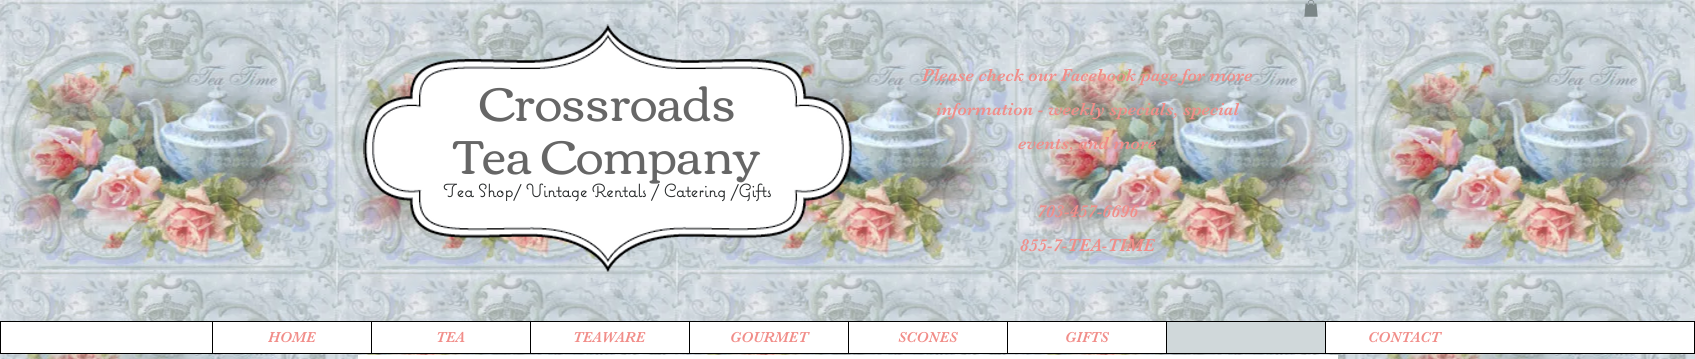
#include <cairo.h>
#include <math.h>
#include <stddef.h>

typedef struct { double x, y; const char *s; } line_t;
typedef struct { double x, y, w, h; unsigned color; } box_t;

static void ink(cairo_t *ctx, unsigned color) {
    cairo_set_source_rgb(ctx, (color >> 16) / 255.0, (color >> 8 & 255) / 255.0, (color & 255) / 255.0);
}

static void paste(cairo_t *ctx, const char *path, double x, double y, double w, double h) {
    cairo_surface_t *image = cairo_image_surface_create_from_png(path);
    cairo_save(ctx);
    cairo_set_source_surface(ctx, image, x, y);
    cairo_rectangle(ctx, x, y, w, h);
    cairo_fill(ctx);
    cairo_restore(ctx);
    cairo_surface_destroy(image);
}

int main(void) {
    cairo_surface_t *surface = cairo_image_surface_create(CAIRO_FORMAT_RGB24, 1695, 359);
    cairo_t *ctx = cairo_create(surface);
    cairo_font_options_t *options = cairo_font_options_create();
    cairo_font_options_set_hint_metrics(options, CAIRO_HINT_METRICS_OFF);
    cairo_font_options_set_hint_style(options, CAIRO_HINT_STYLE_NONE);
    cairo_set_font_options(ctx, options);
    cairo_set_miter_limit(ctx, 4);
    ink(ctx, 0xFFFFFF);
    cairo_paint(ctx);
    paste(ctx, "media/1.png", 0, 0, 1695, 359);
    paste(ctx, "media/2.png", 1304, 0, 14, 17);
    paste(ctx, "media/3.png", 363, 24, 489, 248);
    cairo_select_font_face(ctx, "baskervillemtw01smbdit", CAIRO_FONT_SLANT_NORMAL, CAIRO_FONT_WEIGHT_NORMAL);
    cairo_set_font_size(ctx, 18);
    ink(ctx, 0xF18D89);
    {
        static const line_t items[] = {
            {922, 81, "Please check our Facebook page for more"},
            {936, 115, "information - weekly specials, special"},
            {1018, 149, "events, and more"},
            {1037, 217, "703-457-6696"},
            {1020, 251, "855-7-TEA-TIME"},
        };
        for (size_t i = 0; i < sizeof items / sizeof *items; i++) {
            cairo_move_to(ctx, items[i].x, items[i].y);
            cairo_show_text(ctx, items[i].s);
        }
    }
    cairo_select_font_face(ctx, "Corben", CAIRO_FONT_SLANT_NORMAL, CAIRO_FONT_WEIGHT_NORMAL);
    cairo_set_font_size(ctx, 48);
    ink(ctx, 0x666666);
    cairo_move_to(ctx, 479, 121);
    cairo_show_text(ctx, "Crossroads");
    cairo_move_to(ctx, 454, 174);
    cairo_show_text(ctx, "Tea Company");
    cairo_select_font_face(ctx, "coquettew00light", CAIRO_FONT_SLANT_NORMAL, CAIRO_FONT_WEIGHT_BOLD);
    cairo_set_font_size(ctx, 18);
    ink(ctx, 0x292C2D);
    cairo_move_to(ctx, 443, 197);
    cairo_show_text(ctx, "Tea Shop/ Vintage Rentals / Catering /Gifts");
    ink(ctx, 0xFFFFFF);
    cairo_rectangle(ctx, 0.5, 321.5, 1694, 32);
    cairo_fill_preserve(ctx);
    ink(ctx, 0x000000);
    cairo_set_line_width(ctx, 1);
    cairo_stroke(ctx);
    cairo_rectangle(ctx, 212, 322, 1, 31);
    cairo_fill(ctx);
    cairo_select_font_face(ctx, "baskervillemtw01smbdit", CAIRO_FONT_SLANT_NORMAL, CAIRO_FONT_WEIGHT_NORMAL);
    cairo_set_font_size(ctx, 15);
    ink(ctx, 0xF18D89);
    cairo_move_to(ctx, 268, 342);
    cairo_show_text(ctx, "HOME");
    ink(ctx, 0x000000);
    cairo_rectangle(ctx, 371, 322, 1, 31);
    cairo_fill(ctx);
    ink(ctx, 0xF18D89);
    cairo_move_to(ctx, 436, 342);
    cairo_show_text(ctx, "TEA");
    ink(ctx, 0x000000);
    cairo_rectangle(ctx, 530, 322, 1, 31);
    cairo_fill(ctx);
    ink(ctx, 0xF18D89);
    cairo_move_to(ctx, 573, 342);
    cairo_show_text(ctx, "TEAWARE");
    ink(ctx, 0x000000);
    cairo_rectangle(ctx, 689, 322, 1, 31);
    cairo_fill(ctx);
    ink(ctx, 0xF18D89);
    cairo_move_to(ctx, 730, 342);
    cairo_show_text(ctx, "GOURMET");
    ink(ctx, 0x000000);
    cairo_rectangle(ctx, 848, 322, 1, 31);
    cairo_fill(ctx);
    ink(ctx, 0xF18D89);
    cairo_move_to(ctx, 898, 342);
    cairo_show_text(ctx, "SCONES");
    ink(ctx, 0x000000);
    cairo_rectangle(ctx, 1007, 322, 1, 31);
    cairo_fill(ctx);
    ink(ctx, 0xF18D89);
    cairo_move_to(ctx, 1065, 342);
    cairo_show_text(ctx, "GIFTS");
    {
        static const box_t items[] = {
            {1167, 322, 158, 31, 0xD0D8DA},
            {1166, 322, 1, 31, 0x000000},
            {1325, 322, 1, 31, 0x000000},
        };
        for (size_t i = 0; i < sizeof items / sizeof *items; i++) {
            ink(ctx, items[i].color);
            cairo_rectangle(ctx, items[i].x, items[i].y, items[i].w, items[i].h);
            cairo_fill(ctx);
        }
    }
    ink(ctx, 0xF18D89);
    cairo_move_to(ctx, 1368, 342);
    cairo_show_text(ctx, "CONTACT");
    ink(ctx, 0xFFFFFF);
    cairo_rectangle(ctx, 358, 355, 980, 4);
    cairo_fill(ctx);
    cairo_surface_write_to_png(surface, "image.png");
    cairo_font_options_destroy(options);
    cairo_destroy(ctx);
    cairo_surface_destroy(surface);
    return 0;
}
